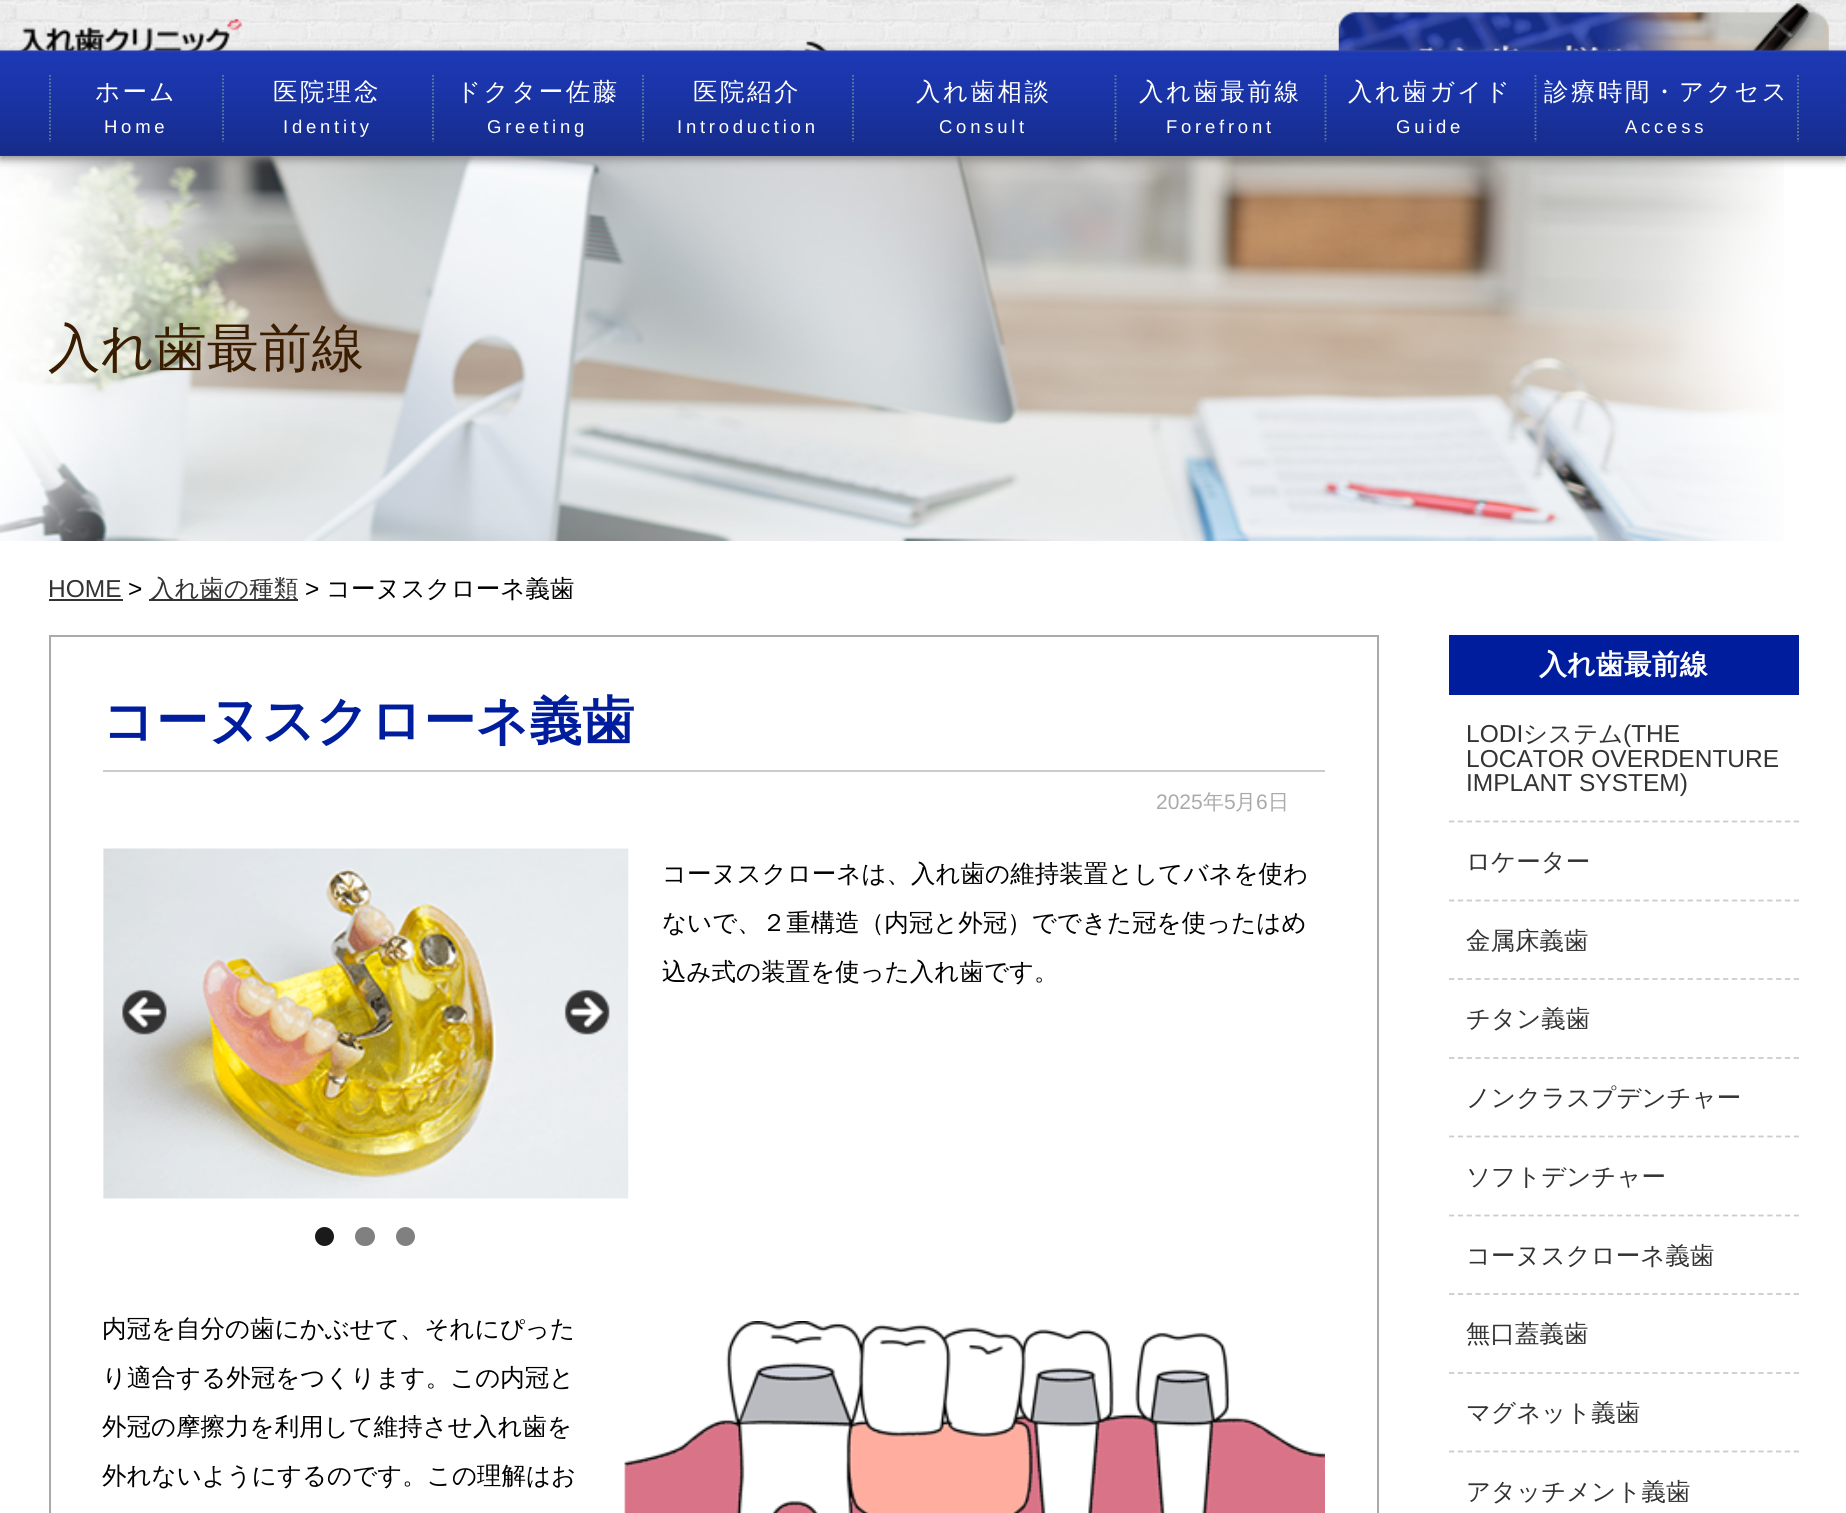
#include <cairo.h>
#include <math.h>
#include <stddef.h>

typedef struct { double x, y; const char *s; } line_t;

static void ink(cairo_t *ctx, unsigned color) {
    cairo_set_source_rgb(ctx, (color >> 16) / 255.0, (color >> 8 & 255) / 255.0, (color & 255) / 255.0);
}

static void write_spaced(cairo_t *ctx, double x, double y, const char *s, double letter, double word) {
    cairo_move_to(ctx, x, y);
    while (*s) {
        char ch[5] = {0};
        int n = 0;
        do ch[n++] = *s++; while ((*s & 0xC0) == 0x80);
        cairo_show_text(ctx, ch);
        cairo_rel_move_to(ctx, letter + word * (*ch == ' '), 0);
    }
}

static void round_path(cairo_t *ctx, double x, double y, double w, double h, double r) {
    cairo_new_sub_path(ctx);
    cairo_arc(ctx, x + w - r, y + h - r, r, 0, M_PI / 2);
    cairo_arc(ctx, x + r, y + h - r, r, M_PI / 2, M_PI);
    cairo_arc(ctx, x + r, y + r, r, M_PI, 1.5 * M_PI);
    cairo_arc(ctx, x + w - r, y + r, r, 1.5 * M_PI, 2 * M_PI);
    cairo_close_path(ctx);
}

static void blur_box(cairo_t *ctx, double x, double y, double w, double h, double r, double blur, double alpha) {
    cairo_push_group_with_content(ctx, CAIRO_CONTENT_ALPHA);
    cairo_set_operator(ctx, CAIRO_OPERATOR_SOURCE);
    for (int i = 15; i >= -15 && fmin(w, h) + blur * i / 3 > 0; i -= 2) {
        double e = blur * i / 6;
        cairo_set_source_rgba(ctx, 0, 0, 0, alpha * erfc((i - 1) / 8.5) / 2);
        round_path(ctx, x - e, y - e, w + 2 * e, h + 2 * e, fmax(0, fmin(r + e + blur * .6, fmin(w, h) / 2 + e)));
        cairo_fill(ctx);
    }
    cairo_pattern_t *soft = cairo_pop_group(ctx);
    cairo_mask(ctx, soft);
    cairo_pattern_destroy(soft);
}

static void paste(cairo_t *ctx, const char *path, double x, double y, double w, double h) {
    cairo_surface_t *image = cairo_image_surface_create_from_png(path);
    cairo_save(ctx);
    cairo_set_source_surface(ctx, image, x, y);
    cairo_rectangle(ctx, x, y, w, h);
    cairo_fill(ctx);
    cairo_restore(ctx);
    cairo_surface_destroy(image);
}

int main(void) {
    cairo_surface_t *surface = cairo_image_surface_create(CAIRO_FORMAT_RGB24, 1846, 1513);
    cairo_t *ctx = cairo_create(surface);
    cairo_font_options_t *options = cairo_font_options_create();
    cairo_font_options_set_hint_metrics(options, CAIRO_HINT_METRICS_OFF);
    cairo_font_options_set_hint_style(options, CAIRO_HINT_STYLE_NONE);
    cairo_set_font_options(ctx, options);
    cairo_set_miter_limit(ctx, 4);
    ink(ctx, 0xFFFFFF);
    cairo_paint(ctx);
    paste(ctx, "media/1.png", 0, 0, 1846, 51);
    paste(ctx, "media/2.png", 17, 18, 225, 33);
    paste(ctx, "media/3.png", 784, 41, 44, 10);
    paste(ctx, "media/4.png", 1338, 1, 491, 50);
    paste(ctx, "media/6.png", 0, 156, 1784, 385);
    ink(ctx, 0x888888);
    blur_box(ctx, 0, 54, 1846, 105, 0, 4.5, 1);
    ink(ctx, 0x1A329E);
    cairo_rectangle(ctx, 0, 155, 1846, 1);
    cairo_fill(ctx);
    paste(ctx, "media/5.png", 0, 50, 1846, 106);
    cairo_new_path(ctx);
    cairo_move_to(ctx, 223, 75);
    cairo_line_to(ctx, 223, 142);
    ink(ctx, 0x5F8098);
    cairo_set_line_width(ctx, 1.8);
    cairo_set_dash(ctx, (double[]){1.75, 1.75}, 2, 0);
    cairo_stroke(ctx);
    cairo_new_path(ctx);
    cairo_move_to(ctx, 50, 75);
    cairo_line_to(ctx, 50, 142);
    cairo_stroke(ctx);
    cairo_select_font_face(ctx, "WenQuanYi Zen Hei Medium", CAIRO_FONT_SLANT_NORMAL, CAIRO_FONT_WEIGHT_NORMAL);
    cairo_set_font_size(ctx, 24.5);
    ink(ctx, 0xFFFFFF);
    write_spaced(ctx, 95, 100, "ホーム", 2.5, 0);
    cairo_select_font_face(ctx, "Liberation Sans", CAIRO_FONT_SLANT_NORMAL, CAIRO_FONT_WEIGHT_NORMAL);
    cairo_set_font_size(ctx, 18.5);
    write_spaced(ctx, 104, 133, "Home", 3.75, 0);
    cairo_new_path(ctx);
    cairo_move_to(ctx, 433, 75);
    cairo_line_to(ctx, 433, 142);
    ink(ctx, 0x5F8098);
    cairo_stroke(ctx);
    cairo_select_font_face(ctx, "WenQuanYi Zen Hei Medium", CAIRO_FONT_SLANT_NORMAL, CAIRO_FONT_WEIGHT_NORMAL);
    cairo_set_font_size(ctx, 24.5);
    ink(ctx, 0xFFFFFF);
    write_spaced(ctx, 273, 100, "医院理念", 2.5, 0);
    cairo_select_font_face(ctx, "Liberation Sans", CAIRO_FONT_SLANT_NORMAL, CAIRO_FONT_WEIGHT_NORMAL);
    cairo_set_font_size(ctx, 18.5);
    write_spaced(ctx, 283, 133, "Identity", 3.75, 0);
    cairo_new_path(ctx);
    cairo_move_to(ctx, 643, 75);
    cairo_line_to(ctx, 643, 142);
    ink(ctx, 0x5F8098);
    cairo_stroke(ctx);
    cairo_select_font_face(ctx, "WenQuanYi Zen Hei Medium", CAIRO_FONT_SLANT_NORMAL, CAIRO_FONT_WEIGHT_NORMAL);
    cairo_set_font_size(ctx, 24.5);
    ink(ctx, 0xFFFFFF);
    write_spaced(ctx, 456, 100, "ドクター佐藤", 2.5, 0);
    cairo_select_font_face(ctx, "Liberation Sans", CAIRO_FONT_SLANT_NORMAL, CAIRO_FONT_WEIGHT_NORMAL);
    cairo_set_font_size(ctx, 18.5);
    write_spaced(ctx, 487, 133, "Greeting", 3.75, 0);
    cairo_new_path(ctx);
    cairo_move_to(ctx, 853, 75);
    cairo_line_to(ctx, 853, 142);
    ink(ctx, 0x5F8098);
    cairo_stroke(ctx);
    cairo_select_font_face(ctx, "WenQuanYi Zen Hei Medium", CAIRO_FONT_SLANT_NORMAL, CAIRO_FONT_WEIGHT_NORMAL);
    cairo_set_font_size(ctx, 24.5);
    ink(ctx, 0xFFFFFF);
    write_spaced(ctx, 693, 100, "医院紹介", 2.5, 0);
    cairo_select_font_face(ctx, "Liberation Sans", CAIRO_FONT_SLANT_NORMAL, CAIRO_FONT_WEIGHT_NORMAL);
    cairo_set_font_size(ctx, 18.5);
    write_spaced(ctx, 677, 133, "Introduction", 3.75, 0);
    cairo_new_path(ctx);
    cairo_move_to(ctx, 1115.5, 75);
    cairo_line_to(ctx, 1115.5, 142);
    ink(ctx, 0x5F8098);
    cairo_stroke(ctx);
    cairo_select_font_face(ctx, "WenQuanYi Zen Hei Medium", CAIRO_FONT_SLANT_NORMAL, CAIRO_FONT_WEIGHT_NORMAL);
    cairo_set_font_size(ctx, 24.5);
    ink(ctx, 0xFFFFFF);
    write_spaced(ctx, 916, 100, "入れ歯相談", 2.5, 0);
    cairo_select_font_face(ctx, "Liberation Sans", CAIRO_FONT_SLANT_NORMAL, CAIRO_FONT_WEIGHT_NORMAL);
    cairo_set_font_size(ctx, 18.5);
    write_spaced(ctx, 939, 133, "Consult", 3.75, 0);
    cairo_new_path(ctx);
    cairo_move_to(ctx, 1325.5, 75);
    cairo_line_to(ctx, 1325.5, 142);
    ink(ctx, 0x5F8098);
    cairo_stroke(ctx);
    cairo_select_font_face(ctx, "WenQuanYi Zen Hei Medium", CAIRO_FONT_SLANT_NORMAL, CAIRO_FONT_WEIGHT_NORMAL);
    cairo_set_font_size(ctx, 24.5);
    ink(ctx, 0xFFFFFF);
    write_spaced(ctx, 1139, 100, "入れ歯最前線", 2.5, 0);
    cairo_select_font_face(ctx, "Liberation Sans", CAIRO_FONT_SLANT_NORMAL, CAIRO_FONT_WEIGHT_NORMAL);
    cairo_set_font_size(ctx, 18.5);
    write_spaced(ctx, 1166, 133, "Forefront", 3.75, 0);
    cairo_new_path(ctx);
    cairo_move_to(ctx, 1535.5, 75);
    cairo_line_to(ctx, 1535.5, 142);
    ink(ctx, 0x5F8098);
    cairo_stroke(ctx);
    cairo_select_font_face(ctx, "WenQuanYi Zen Hei Medium", CAIRO_FONT_SLANT_NORMAL, CAIRO_FONT_WEIGHT_NORMAL);
    cairo_set_font_size(ctx, 24.5);
    ink(ctx, 0xFFFFFF);
    write_spaced(ctx, 1348, 100, "入れ歯ガイド", 2.5, 0);
    cairo_select_font_face(ctx, "Liberation Sans", CAIRO_FONT_SLANT_NORMAL, CAIRO_FONT_WEIGHT_NORMAL);
    cairo_set_font_size(ctx, 18.5);
    write_spaced(ctx, 1396, 133, "Guide", 3.75, 0);
    cairo_new_path(ctx);
    cairo_move_to(ctx, 1798, 75);
    cairo_line_to(ctx, 1798, 142);
    ink(ctx, 0x5F8098);
    cairo_stroke(ctx);
    cairo_select_font_face(ctx, "WenQuanYi Zen Hei Medium", CAIRO_FONT_SLANT_NORMAL, CAIRO_FONT_WEIGHT_NORMAL);
    cairo_set_font_size(ctx, 24.5);
    ink(ctx, 0xFFFFFF);
    write_spaced(ctx, 1544, 100, "診療時間・アクセス", 2.5, 0);
    cairo_select_font_face(ctx, "Liberation Sans", CAIRO_FONT_SLANT_NORMAL, CAIRO_FONT_WEIGHT_NORMAL);
    cairo_set_font_size(ctx, 18.5);
    write_spaced(ctx, 1625, 133, "Access", 3.75, 0);
    cairo_select_font_face(ctx, "WenQuanYi Zen Hei Medium", CAIRO_FONT_SLANT_NORMAL, CAIRO_FONT_WEIGHT_NORMAL);
    cairo_set_font_size(ctx, 52.5);
    ink(ctx, 0x3A1D00);
    cairo_move_to(ctx, 48, 366);
    cairo_show_text(ctx, "入れ歯最前線");
    cairo_select_font_face(ctx, "Liberation Sans", CAIRO_FONT_SLANT_NORMAL, CAIRO_FONT_WEIGHT_NORMAL);
    cairo_set_font_size(ctx, 24.5);
    ink(ctx, 0x333333);
    cairo_move_to(ctx, 48, 597);
    cairo_show_text(ctx, "HOME");
    cairo_rectangle(ctx, 49, 599, 74, 2);
    cairo_fill(ctx);
    ink(ctx, 0x000000);
    cairo_move_to(ctx, 128, 597);
    cairo_show_text(ctx, ">");
    ink(ctx, 0x333333);
    cairo_rectangle(ctx, 149, 599, 149, 2);
    cairo_fill(ctx);
    cairo_select_font_face(ctx, "WenQuanYi Zen Hei Medium", CAIRO_FONT_SLANT_NORMAL, CAIRO_FONT_WEIGHT_NORMAL);
    cairo_move_to(ctx, 150, 597);
    cairo_show_text(ctx, "入れ歯の種類");
    cairo_select_font_face(ctx, "Liberation Sans", CAIRO_FONT_SLANT_NORMAL, CAIRO_FONT_WEIGHT_NORMAL);
    ink(ctx, 0x000000);
    cairo_move_to(ctx, 305, 597);
    cairo_show_text(ctx, ">");
    cairo_select_font_face(ctx, "WenQuanYi Zen Hei Medium", CAIRO_FONT_SLANT_NORMAL, CAIRO_FONT_WEIGHT_NORMAL);
    cairo_move_to(ctx, 326, 597);
    cairo_show_text(ctx, "コーヌスクローネ義歯");
    cairo_rectangle(ctx, 50, 636, 1328, 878);
    ink(ctx, 0xAAAAAA);
    cairo_set_line_width(ctx, 2);
    cairo_set_dash(ctx, NULL, 0, 0);
    cairo_stroke(ctx);
    cairo_select_font_face(ctx, "WenQuanYi Zen Hei", CAIRO_FONT_SLANT_NORMAL, CAIRO_FONT_WEIGHT_BOLD);
    cairo_set_font_size(ctx, 52.5);
    ink(ctx, 0x001D9D);
    cairo_move_to(ctx, 102, 739);
    cairo_show_text(ctx, "コーヌスクローネ義歯");
    ink(ctx, 0xCCCCCC);
    cairo_rectangle(ctx, 103, 770, 1222, 2);
    cairo_fill(ctx);
    cairo_select_font_face(ctx, "Liberation Sans", CAIRO_FONT_SLANT_NORMAL, CAIRO_FONT_WEIGHT_NORMAL);
    cairo_set_font_size(ctx, 21);
    ink(ctx, 0xAAAAAA);
    cairo_move_to(ctx, 1156, 809);
    cairo_show_text(ctx, "2025");
    cairo_select_font_face(ctx, "WenQuanYi Zen Hei Medium", CAIRO_FONT_SLANT_NORMAL, CAIRO_FONT_WEIGHT_NORMAL);
    cairo_move_to(ctx, 1203, 809);
    cairo_show_text(ctx, "年");
    cairo_select_font_face(ctx, "Liberation Sans", CAIRO_FONT_SLANT_NORMAL, CAIRO_FONT_WEIGHT_NORMAL);
    cairo_move_to(ctx, 1224, 809);
    cairo_show_text(ctx, "5");
    cairo_select_font_face(ctx, "WenQuanYi Zen Hei Medium", CAIRO_FONT_SLANT_NORMAL, CAIRO_FONT_WEIGHT_NORMAL);
    cairo_move_to(ctx, 1235, 809);
    cairo_show_text(ctx, "月");
    cairo_select_font_face(ctx, "Liberation Sans", CAIRO_FONT_SLANT_NORMAL, CAIRO_FONT_WEIGHT_NORMAL);
    cairo_move_to(ctx, 1256, 809);
    cairo_show_text(ctx, "6");
    cairo_select_font_face(ctx, "WenQuanYi Zen Hei Medium", CAIRO_FONT_SLANT_NORMAL, CAIRO_FONT_WEIGHT_NORMAL);
    cairo_move_to(ctx, 1268, 809);
    cairo_show_text(ctx, "日");
    paste(ctx, "media/7.png", 103, 848, 526, 351);
    paste(ctx, "media/8.png", 122, 989, 45, 46);
    paste(ctx, "media/9.png", 564, 989, 46, 46);
    ink(ctx, 0x1A1A1A);
    cairo_arc(ctx, 324.5, 1236.5, 9.5, 0, 2 * M_PI);
    cairo_fill(ctx);
    ink(ctx, 0x808080);
    round_path(ctx, 355, 1227, 20, 19, 9.5);
    cairo_fill(ctx);
    cairo_arc(ctx, 405.5, 1236.5, 9.5, 0, 2 * M_PI);
    cairo_fill(ctx);
    cairo_set_font_size(ctx, 24.5);
    ink(ctx, 0x000000);
    {
        static const line_t items[] = {
            {662, 882, "コーヌスクローネは、入れ歯の維持装置としてバネを使わ"},
            {662, 931, "ないで、２重構造（内冠と外冠）でできた冠を使ったはめ"},
            {662, 980, "込み式の装置を使った入れ歯です。"},
            {102, 1337, "内冠を自分の歯にかぶせて、それにぴった"},
            {102, 1386, "り適合する外冠をつくります。この内冠と"},
            {102, 1435, "外冠の摩擦力を利用して維持させ入れ歯を"},
            {102, 1484, "外れないようにするのです。この理解はお"},
        };
        for (size_t i = 0; i < sizeof items / sizeof *items; i++) {
            cairo_move_to(ctx, items[i].x, items[i].y);
            cairo_show_text(ctx, items[i].s);
        }
    }
    paste(ctx, "media/10.png", 624, 1321, 701, 192);
    ink(ctx, 0x001D9D);
    cairo_rectangle(ctx, 1449, 635, 350, 60);
    cairo_fill(ctx);
    cairo_select_font_face(ctx, "WenQuanYi Zen Hei", CAIRO_FONT_SLANT_NORMAL, CAIRO_FONT_WEIGHT_BOLD);
    cairo_set_font_size(ctx, 28);
    ink(ctx, 0xFFFFFF);
    cairo_move_to(ctx, 1539, 674);
    cairo_show_text(ctx, "入れ歯最前線");
    cairo_new_path(ctx);
    cairo_move_to(ctx, 1449, 821.5);
    cairo_line_to(ctx, 1799, 821.5);
    ink(ctx, 0xCCCCCC);
    cairo_set_line_width(ctx, 1.8);
    cairo_set_dash(ctx, (double[]){5.25, 3.59}, 2, 0);
    cairo_stroke(ctx);
    cairo_select_font_face(ctx, "Liberation Sans", CAIRO_FONT_SLANT_NORMAL, CAIRO_FONT_WEIGHT_NORMAL);
    cairo_set_font_size(ctx, 24.5);
    ink(ctx, 0x333333);
    cairo_move_to(ctx, 1466, 742);
    cairo_show_text(ctx, "LODI");
    cairo_select_font_face(ctx, "WenQuanYi Zen Hei Medium", CAIRO_FONT_SLANT_NORMAL, CAIRO_FONT_WEIGHT_NORMAL);
    cairo_move_to(ctx, 1523, 742);
    cairo_show_text(ctx, "システム");
    cairo_select_font_face(ctx, "Liberation Sans", CAIRO_FONT_SLANT_NORMAL, CAIRO_FONT_WEIGHT_NORMAL);
    {
        static const line_t items[] = {
            {1623, 742, "(THE"},
            {1466, 767, "LOCATOR OVERDENTURE"},
            {1466, 791, "IMPLANT SYSTEM)"},
        };
        for (size_t i = 0; i < sizeof items / sizeof *items; i++) {
            cairo_move_to(ctx, items[i].x, items[i].y);
            cairo_show_text(ctx, items[i].s);
        }
    }
    cairo_new_path(ctx);
    cairo_move_to(ctx, 1449, 900.5);
    cairo_line_to(ctx, 1799, 900.5);
    ink(ctx, 0xCCCCCC);
    cairo_stroke(ctx);
    cairo_select_font_face(ctx, "WenQuanYi Zen Hei Medium", CAIRO_FONT_SLANT_NORMAL, CAIRO_FONT_WEIGHT_NORMAL);
    ink(ctx, 0x333333);
    cairo_move_to(ctx, 1466, 870);
    cairo_show_text(ctx, "ロケーター");
    cairo_new_path(ctx);
    cairo_move_to(ctx, 1449, 979);
    cairo_line_to(ctx, 1799, 979);
    ink(ctx, 0xCCCCCC);
    cairo_stroke(ctx);
    ink(ctx, 0x333333);
    cairo_move_to(ctx, 1466, 949);
    cairo_show_text(ctx, "金属床義歯");
    cairo_new_path(ctx);
    cairo_move_to(ctx, 1449, 1058);
    cairo_line_to(ctx, 1799, 1058);
    ink(ctx, 0xCCCCCC);
    cairo_stroke(ctx);
    ink(ctx, 0x333333);
    cairo_move_to(ctx, 1466, 1027);
    cairo_show_text(ctx, "チタン義歯");
    cairo_new_path(ctx);
    cairo_move_to(ctx, 1449, 1136.5);
    cairo_line_to(ctx, 1799, 1136.5);
    ink(ctx, 0xCCCCCC);
    cairo_stroke(ctx);
    ink(ctx, 0x333333);
    cairo_move_to(ctx, 1466, 1106);
    cairo_show_text(ctx, "ノンクラスプデンチャー");
    cairo_new_path(ctx);
    cairo_move_to(ctx, 1449, 1215.5);
    cairo_line_to(ctx, 1799, 1215.5);
    ink(ctx, 0xCCCCCC);
    cairo_stroke(ctx);
    ink(ctx, 0x333333);
    cairo_move_to(ctx, 1466, 1185);
    cairo_show_text(ctx, "ソフトデンチャー");
    cairo_new_path(ctx);
    cairo_move_to(ctx, 1449, 1294);
    cairo_line_to(ctx, 1799, 1294);
    ink(ctx, 0xCCCCCC);
    cairo_stroke(ctx);
    ink(ctx, 0x333333);
    cairo_move_to(ctx, 1466, 1264);
    cairo_show_text(ctx, "コーヌスクローネ義歯");
    cairo_new_path(ctx);
    cairo_move_to(ctx, 1449, 1373);
    cairo_line_to(ctx, 1799, 1373);
    ink(ctx, 0xCCCCCC);
    cairo_stroke(ctx);
    ink(ctx, 0x333333);
    cairo_move_to(ctx, 1466, 1342);
    cairo_show_text(ctx, "無口蓋義歯");
    cairo_new_path(ctx);
    cairo_move_to(ctx, 1449, 1451.5);
    cairo_line_to(ctx, 1799, 1451.5);
    ink(ctx, 0xCCCCCC);
    cairo_stroke(ctx);
    ink(ctx, 0x333333);
    cairo_move_to(ctx, 1466, 1421);
    cairo_show_text(ctx, "マグネット義歯");
    cairo_move_to(ctx, 1466, 1500);
    cairo_show_text(ctx, "アタッチメント義歯");
    cairo_surface_write_to_png(surface, "image.png");
    cairo_font_options_destroy(options);
    cairo_destroy(ctx);
    cairo_surface_destroy(surface);
    return 0;
}
